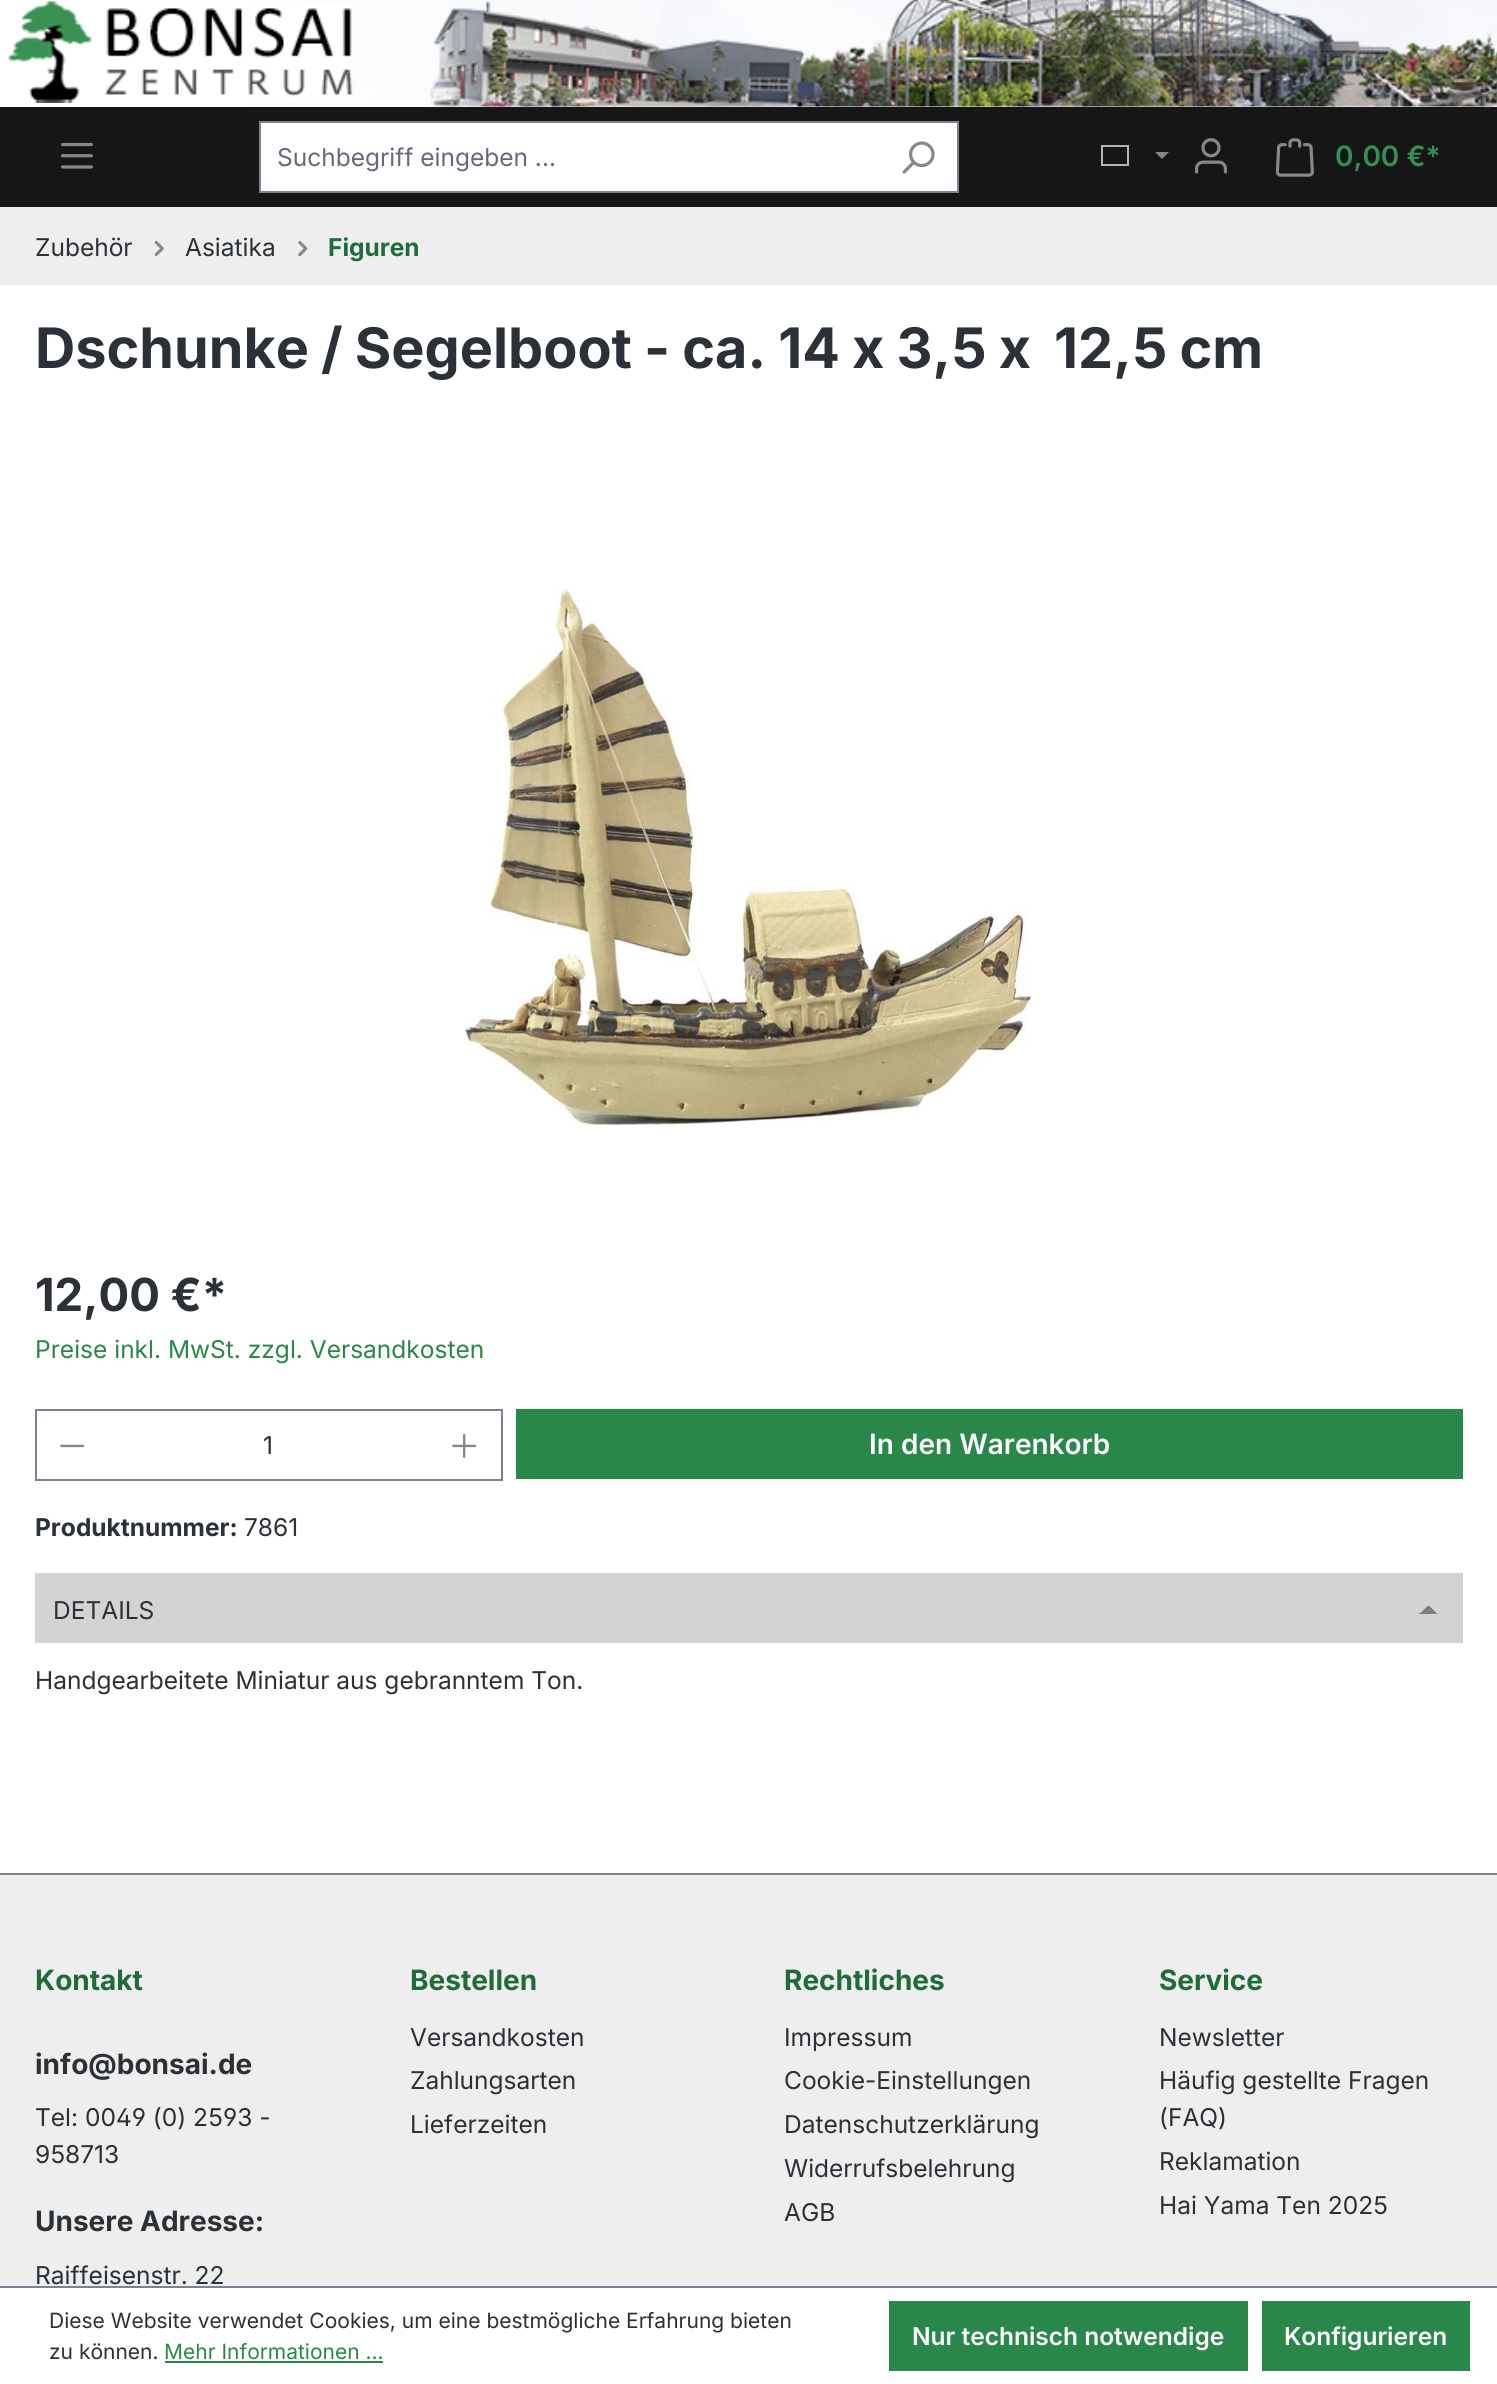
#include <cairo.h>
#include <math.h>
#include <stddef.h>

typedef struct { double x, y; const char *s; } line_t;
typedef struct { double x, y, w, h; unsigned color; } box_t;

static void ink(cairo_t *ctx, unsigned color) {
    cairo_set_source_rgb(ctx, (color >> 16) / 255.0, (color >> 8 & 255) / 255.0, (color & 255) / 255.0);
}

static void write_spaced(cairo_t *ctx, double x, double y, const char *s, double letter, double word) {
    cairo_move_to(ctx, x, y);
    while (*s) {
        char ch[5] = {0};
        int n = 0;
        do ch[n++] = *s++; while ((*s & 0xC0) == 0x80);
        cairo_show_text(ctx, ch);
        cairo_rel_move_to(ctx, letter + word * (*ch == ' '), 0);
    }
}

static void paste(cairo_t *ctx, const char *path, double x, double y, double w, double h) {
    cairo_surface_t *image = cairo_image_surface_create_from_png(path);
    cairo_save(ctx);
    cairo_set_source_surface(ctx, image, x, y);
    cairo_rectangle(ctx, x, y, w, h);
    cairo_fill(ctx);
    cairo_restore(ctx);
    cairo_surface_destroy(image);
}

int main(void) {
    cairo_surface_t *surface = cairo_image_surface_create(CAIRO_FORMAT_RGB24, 1497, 2384);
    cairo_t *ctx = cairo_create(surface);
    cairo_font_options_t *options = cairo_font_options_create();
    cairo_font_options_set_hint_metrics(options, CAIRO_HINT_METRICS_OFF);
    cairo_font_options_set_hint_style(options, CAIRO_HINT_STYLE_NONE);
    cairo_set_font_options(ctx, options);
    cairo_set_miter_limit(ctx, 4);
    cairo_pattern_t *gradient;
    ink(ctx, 0xFFFFFF);
    cairo_paint(ctx);
    paste(ctx, "media/1.png", 248, 0, 1249, 107);
    paste(ctx, "media/2.png", 8, 1, 345, 102);
    ink(ctx, 0x161616);
    cairo_rectangle(ctx, 0, 107, 1497, 100);
    cairo_fill(ctx);
    paste(ctx, "media/3.png", 61, 142, 32, 27);
    {
        static const box_t items[] = {
            {261, 123, 696, 68, 0xFFFFFF},
            {259, 121, 700, 2, 0x798490},
            {259, 191, 620, 2, 0x798490},
            {259, 121, 2, 72, 0x798490},
        };
        for (size_t i = 0; i < sizeof items / sizeof *items; i++) {
            ink(ctx, items[i].color);
            cairo_rectangle(ctx, items[i].x, items[i].y, items[i].w, items[i].h);
            cairo_fill(ctx);
        }
    }
    cairo_select_font_face(ctx, "Inter", CAIRO_FONT_SLANT_NORMAL, CAIRO_FONT_WEIGHT_NORMAL);
    cairo_set_font_size(ctx, 24.5);
    ink(ctx, 0x666977);
    cairo_move_to(ctx, 277, 166);
    cairo_show_text(ctx, "Suchbegriff eingeben ...");
    ink(ctx, 0x798490);
    cairo_rectangle(ctx, 957, 121, 2, 72);
    cairo_fill(ctx);
    cairo_rectangle(ctx, 877, 191, 82, 2);
    cairo_fill(ctx);
    paste(ctx, "media/4.png", 902, 141, 33, 33);
    cairo_rectangle(ctx, 1102, 146, 26, 19);
    ink(ctx, 0xADB5BD);
    cairo_stroke(ctx);
    ink(ctx, 0x878787);
    cairo_new_path(ctx);
    cairo_move_to(ctx, 1155, 152);
    cairo_line_to(ctx, 1169, 152);
    cairo_line_to(ctx, 1162, 159);
    cairo_close_path(ctx);
    cairo_fill(ctx);
    paste(ctx, "media/5.png", 1194, 138, 34, 36);
    paste(ctx, "media/6.png", 1276, 138, 38, 39);
    cairo_select_font_face(ctx, "Inter SemiBold", CAIRO_FONT_SLANT_NORMAL, CAIRO_FONT_WEIGHT_NORMAL);
    cairo_set_font_size(ctx, 28);
    ink(ctx, 0x339053);
    cairo_move_to(ctx, 1335, 166);
    cairo_show_text(ctx, "0,00 €*");
    ink(ctx, 0xEEEEEE);
    cairo_rectangle(ctx, 0, 207, 1497, 78);
    cairo_fill(ctx);
    cairo_select_font_face(ctx, "Inter", CAIRO_FONT_SLANT_NORMAL, CAIRO_FONT_WEIGHT_NORMAL);
    cairo_set_font_size(ctx, 24.5);
    ink(ctx, 0x2B3136);
    cairo_move_to(ctx, 35, 256);
    cairo_show_text(ctx, "Zubehör");
    paste(ctx, "media/7.png", 154, 240, 10, 17);
    cairo_move_to(ctx, 185, 256);
    cairo_show_text(ctx, "Asiatika");
    paste(ctx, "media/8.png", 298, 240, 10, 17);
    cairo_select_font_face(ctx, "Inter", CAIRO_FONT_SLANT_NORMAL, CAIRO_FONT_WEIGHT_BOLD);
    ink(ctx, 0x206B3A);
    cairo_move_to(ctx, 328, 256);
    cairo_show_text(ctx, "Figuren");
    cairo_set_font_size(ctx, 55.75);
    ink(ctx, 0x2B3136);
    write_spaced(ctx, 35, 368, "Dschunke / Segelboot - ca. 14 x 3,5 x", 0, -1.1);
    write_spaced(ctx, 1054, 368, "12,5 cm", 0, -1.1);
    paste(ctx, "media/9.png", 464, 588, 568, 538);
    cairo_set_font_size(ctx, 45.5);
    cairo_move_to(ctx, 35, 1311);
    cairo_show_text(ctx, "12,00 €*");
    cairo_select_font_face(ctx, "Inter", CAIRO_FONT_SLANT_NORMAL, CAIRO_FONT_WEIGHT_NORMAL);
    cairo_set_font_size(ctx, 24.5);
    ink(ctx, 0x2A874A);
    cairo_move_to(ctx, 35, 1358);
    cairo_show_text(ctx, "Preise inkl. MwSt. zzgl. Versandkosten");
    {
        static const box_t items[] = {
            {35, 1409, 467, 2, 0x798490},
            {35, 1479, 396, 2, 0x798490},
            {35, 1409, 2, 72, 0x798490},
        };
        for (size_t i = 0; i < sizeof items / sizeof *items; i++) {
            ink(ctx, items[i].color);
            cairo_rectangle(ctx, items[i].x, items[i].y, items[i].w, items[i].h);
            cairo_fill(ctx);
        }
    }
    paste(ctx, "media/10.png", 60, 1444, 25, 4);
    ink(ctx, 0x2B3136);
    cairo_move_to(ctx, 263, 1454);
    cairo_show_text(ctx, "1");
    ink(ctx, 0x798490);
    cairo_rectangle(ctx, 501, 1409, 2, 72);
    cairo_fill(ctx);
    cairo_rectangle(ctx, 429, 1479, 73, 2);
    cairo_fill(ctx);
    paste(ctx, "media/11.png", 452, 1433, 25, 25);
    ink(ctx, 0x2A874A);
    cairo_rectangle(ctx, 516, 1409, 947, 70);
    cairo_fill(ctx);
    cairo_select_font_face(ctx, "Inter SemiBold", CAIRO_FONT_SLANT_NORMAL, CAIRO_FONT_WEIGHT_NORMAL);
    cairo_set_font_size(ctx, 28);
    ink(ctx, 0xFFFFFF);
    cairo_move_to(ctx, 869, 1454);
    cairo_show_text(ctx, "In den Warenkorb");
    cairo_select_font_face(ctx, "Inter", CAIRO_FONT_SLANT_NORMAL, CAIRO_FONT_WEIGHT_BOLD);
    cairo_set_font_size(ctx, 24.5);
    ink(ctx, 0x2B3136);
    cairo_move_to(ctx, 35, 1536);
    cairo_show_text(ctx, "Produktnummer:");
    cairo_select_font_face(ctx, "Inter", CAIRO_FONT_SLANT_NORMAL, CAIRO_FONT_WEIGHT_NORMAL);
    cairo_move_to(ctx, 244, 1536);
    cairo_show_text(ctx, "7861");
    ink(ctx, 0xD3D3D3);
    cairo_rectangle(ctx, 35, 1573, 1428, 70);
    cairo_fill(ctx);
    gradient = cairo_pattern_create_linear(1419, 1605, 1428, 1614);
    cairo_pattern_add_color_stop_rgba(gradient, 0.5, 0.827, 0.827, 0.827, 1);
    cairo_pattern_add_color_stop_rgba(gradient, 0.5, 0.502, 0.502, 0.502, 1);
    cairo_set_source(ctx, gradient);
    cairo_pattern_destroy(gradient);
    cairo_rectangle(ctx, 1419, 1606, 9, 8);
    cairo_fill(ctx);
    gradient = cairo_pattern_create_linear(1428, 1614, 1437, 1605);
    cairo_pattern_add_color_stop_rgba(gradient, 0.5, 0.502, 0.502, 0.502, 1);
    cairo_pattern_add_color_stop_rgba(gradient, 0.5, 0.827, 0.827, 0.827, 1);
    cairo_set_source(ctx, gradient);
    cairo_pattern_destroy(gradient);
    cairo_rectangle(ctx, 1428, 1606, 9, 8);
    cairo_fill(ctx);
    ink(ctx, 0x2B3136);
    cairo_move_to(ctx, 53, 1619);
    cairo_show_text(ctx, "DETAILS");
    cairo_move_to(ctx, 35, 1689);
    cairo_show_text(ctx, "Handgearbeitete Miniatur aus gebranntem Ton.");
    ink(ctx, 0xEEEEEE);
    cairo_rectangle(ctx, 0, 1875, 1497, 411);
    cairo_fill(ctx);
    ink(ctx, 0x798490);
    cairo_rectangle(ctx, 0, 1873, 1497, 2);
    cairo_fill(ctx);
    cairo_select_font_face(ctx, "Inter", CAIRO_FONT_SLANT_NORMAL, CAIRO_FONT_WEIGHT_BOLD);
    cairo_set_font_size(ctx, 28);
    ink(ctx, 0x206B3A);
    cairo_move_to(ctx, 35, 1990);
    cairo_show_text(ctx, "Kontakt");
    ink(ctx, 0x2B3136);
    cairo_move_to(ctx, 35, 2074);
    cairo_show_text(ctx, "info@bonsai.de");
    cairo_select_font_face(ctx, "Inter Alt", CAIRO_FONT_SLANT_NORMAL, CAIRO_FONT_WEIGHT_NORMAL);
    cairo_set_font_size(ctx, 24.5);
    cairo_move_to(ctx, 35, 2126);
    cairo_show_text(ctx, "Tel: 0049 (0) 2593 -");
    cairo_select_font_face(ctx, "Inter", CAIRO_FONT_SLANT_NORMAL, CAIRO_FONT_WEIGHT_NORMAL);
    cairo_move_to(ctx, 35, 2163);
    cairo_show_text(ctx, "958713");
    cairo_select_font_face(ctx, "Inter", CAIRO_FONT_SLANT_NORMAL, CAIRO_FONT_WEIGHT_BOLD);
    cairo_set_font_size(ctx, 28);
    cairo_move_to(ctx, 35, 2231);
    cairo_show_text(ctx, "Unsere Adresse:");
    cairo_select_font_face(ctx, "Inter", CAIRO_FONT_SLANT_NORMAL, CAIRO_FONT_WEIGHT_NORMAL);
    cairo_set_font_size(ctx, 24.5);
    cairo_move_to(ctx, 35, 2284);
    cairo_show_text(ctx, "Raiffeisenstr. 22");
    cairo_select_font_face(ctx, "Inter", CAIRO_FONT_SLANT_NORMAL, CAIRO_FONT_WEIGHT_BOLD);
    cairo_set_font_size(ctx, 28);
    ink(ctx, 0x206B3A);
    cairo_move_to(ctx, 410, 1990);
    cairo_show_text(ctx, "Bestellen");
    cairo_select_font_face(ctx, "Inter", CAIRO_FONT_SLANT_NORMAL, CAIRO_FONT_WEIGHT_NORMAL);
    cairo_set_font_size(ctx, 24.5);
    ink(ctx, 0x2B3136);
    {
        static const line_t items[] = {
            {410, 2046, "Versandkosten"},
            {410, 2089, "Zahlungsarten"},
            {410, 2133, "Lieferzeiten"},
        };
        for (size_t i = 0; i < sizeof items / sizeof *items; i++) {
            cairo_move_to(ctx, items[i].x, items[i].y);
            cairo_show_text(ctx, items[i].s);
        }
    }
    cairo_select_font_face(ctx, "Inter", CAIRO_FONT_SLANT_NORMAL, CAIRO_FONT_WEIGHT_BOLD);
    cairo_set_font_size(ctx, 28);
    ink(ctx, 0x206B3A);
    cairo_move_to(ctx, 784, 1990);
    cairo_show_text(ctx, "Rechtliches");
    cairo_select_font_face(ctx, "Inter", CAIRO_FONT_SLANT_NORMAL, CAIRO_FONT_WEIGHT_NORMAL);
    cairo_set_font_size(ctx, 24.5);
    ink(ctx, 0x2B3136);
    {
        static const line_t items[] = {
            {784, 2046, "Impressum"},
            {784, 2089, "Cookie-Einstellungen"},
            {784, 2133, "Datenschutzerklärung"},
            {784, 2177, "Widerrufsbelehrung"},
            {784, 2221, "AGB"},
        };
        for (size_t i = 0; i < sizeof items / sizeof *items; i++) {
            cairo_move_to(ctx, items[i].x, items[i].y);
            cairo_show_text(ctx, items[i].s);
        }
    }
    cairo_select_font_face(ctx, "Inter", CAIRO_FONT_SLANT_NORMAL, CAIRO_FONT_WEIGHT_BOLD);
    cairo_set_font_size(ctx, 28);
    ink(ctx, 0x206B3A);
    cairo_move_to(ctx, 1159, 1990);
    cairo_show_text(ctx, "Service");
    cairo_select_font_face(ctx, "Inter", CAIRO_FONT_SLANT_NORMAL, CAIRO_FONT_WEIGHT_NORMAL);
    cairo_set_font_size(ctx, 24.5);
    ink(ctx, 0x2B3136);
    {
        static const line_t items[] = {
            {1159, 2046, "Newsletter"},
            {1159, 2089, "Häufig gestellte Fragen"},
            {1159, 2126, "(FAQ)"},
            {1159, 2170, "Reklamation"},
            {1159, 2214, "Hai Yama Ten 2025"},
        };
        for (size_t i = 0; i < sizeof items / sizeof *items; i++) {
            cairo_move_to(ctx, items[i].x, items[i].y);
            cairo_show_text(ctx, items[i].s);
        }
    }
    ink(ctx, 0x798490);
    cairo_rectangle(ctx, 0, 2286, 1497, 2);
    cairo_fill(ctx);
    cairo_set_font_size(ctx, 21);
    ink(ctx, 0x2B3136);
    cairo_move_to(ctx, 49, 2328);
    cairo_show_text(ctx, "Diese Website verwendet Cookies, um eine bestmögliche Erfahrung bieten");
    cairo_move_to(ctx, 49, 2359);
    cairo_show_text(ctx, "zu können.");
    ink(ctx, 0x2A874A);
    cairo_move_to(ctx, 164, 2359);
    cairo_show_text(ctx, "Mehr Informationen ...");
    cairo_rectangle(ctx, 165, 2361, 218, 2);
    cairo_fill(ctx);
    cairo_rectangle(ctx, 889, 2301, 359, 70);
    cairo_fill(ctx);
    cairo_select_font_face(ctx, "Inter SemiBold", CAIRO_FONT_SLANT_NORMAL, CAIRO_FONT_WEIGHT_NORMAL);
    cairo_set_font_size(ctx, 24.5);
    ink(ctx, 0xFFFFFF);
    cairo_move_to(ctx, 912, 2345);
    cairo_show_text(ctx, "Nur technisch notwendige");
    ink(ctx, 0x2A874A);
    cairo_rectangle(ctx, 1262, 2301, 208, 70);
    cairo_fill(ctx);
    ink(ctx, 0xFFFFFF);
    cairo_move_to(ctx, 1284, 2345);
    cairo_show_text(ctx, "Konfigurieren");
    cairo_surface_write_to_png(surface, "image.png");
    cairo_font_options_destroy(options);
    cairo_destroy(ctx);
    cairo_surface_destroy(surface);
    return 0;
}
